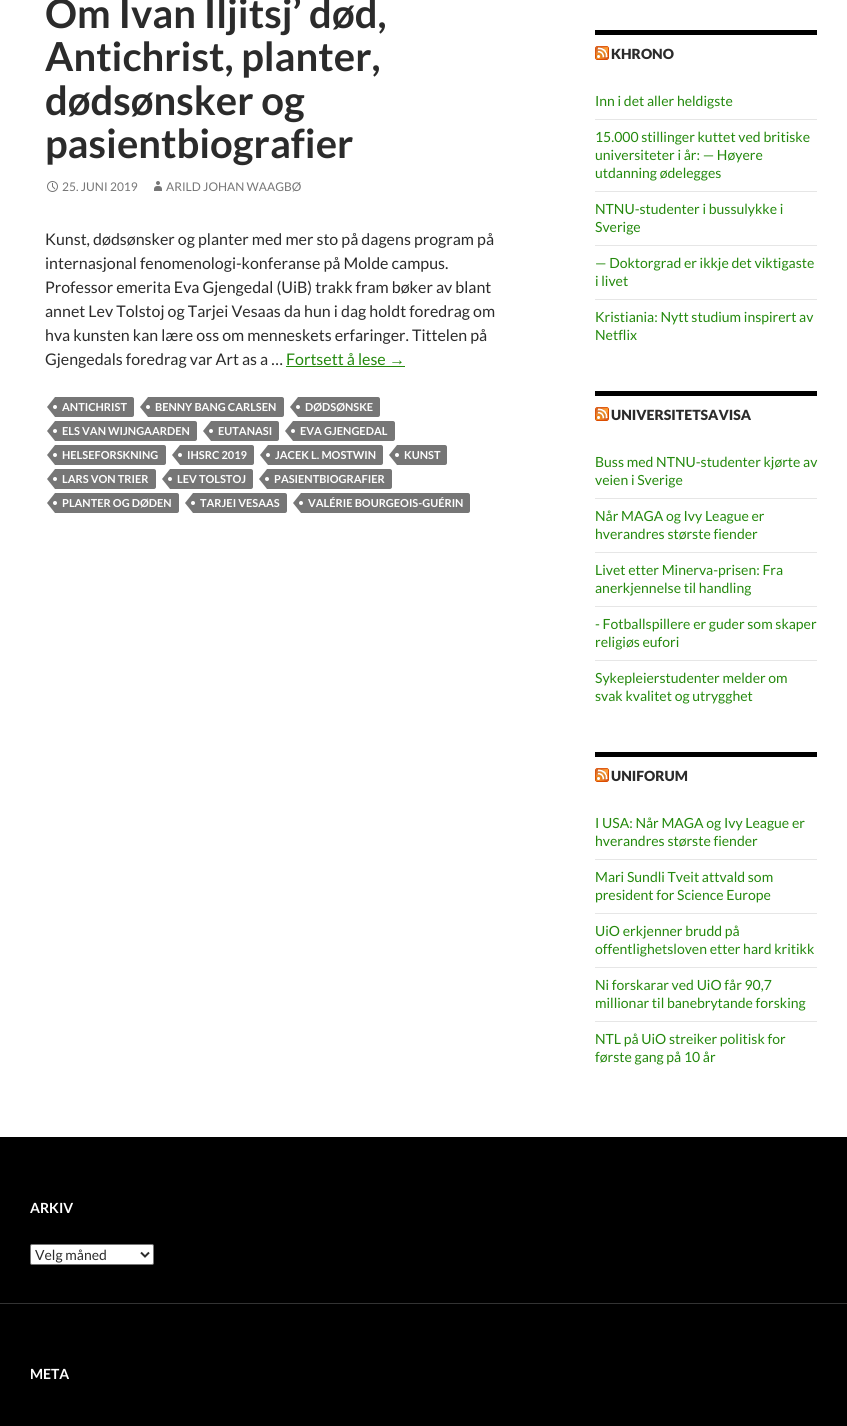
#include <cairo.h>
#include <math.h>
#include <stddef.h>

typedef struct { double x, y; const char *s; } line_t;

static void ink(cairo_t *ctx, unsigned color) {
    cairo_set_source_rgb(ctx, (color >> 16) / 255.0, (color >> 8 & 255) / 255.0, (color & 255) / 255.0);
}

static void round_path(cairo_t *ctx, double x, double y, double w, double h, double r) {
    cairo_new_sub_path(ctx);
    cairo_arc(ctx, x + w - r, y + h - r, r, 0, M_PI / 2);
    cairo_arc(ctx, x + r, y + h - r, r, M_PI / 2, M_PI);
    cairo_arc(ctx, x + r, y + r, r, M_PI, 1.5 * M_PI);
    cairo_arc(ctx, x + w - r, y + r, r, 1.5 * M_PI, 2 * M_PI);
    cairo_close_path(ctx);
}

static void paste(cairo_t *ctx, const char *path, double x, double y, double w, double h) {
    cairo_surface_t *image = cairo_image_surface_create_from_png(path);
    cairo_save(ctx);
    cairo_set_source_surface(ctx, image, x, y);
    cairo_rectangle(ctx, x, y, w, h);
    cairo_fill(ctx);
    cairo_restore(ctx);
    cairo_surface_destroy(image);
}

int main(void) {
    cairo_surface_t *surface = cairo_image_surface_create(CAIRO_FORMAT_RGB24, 847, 1426);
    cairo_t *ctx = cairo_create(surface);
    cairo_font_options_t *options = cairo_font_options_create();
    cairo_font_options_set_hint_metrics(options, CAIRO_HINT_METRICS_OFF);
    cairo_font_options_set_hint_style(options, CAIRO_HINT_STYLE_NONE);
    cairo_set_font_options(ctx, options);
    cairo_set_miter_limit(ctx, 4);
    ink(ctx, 0xFFFFFF);
    cairo_paint(ctx);
    cairo_select_font_face(ctx, "Lato", CAIRO_FONT_SLANT_NORMAL, CAIRO_FONT_WEIGHT_BOLD);
    cairo_set_font_size(ctx, 40);
    ink(ctx, 0x2B2B2B);
    {
        static const line_t items[] = {
            {45, 28, "Om Ivan Iljitsj’ død,"},
            {45, 71, "Antichrist, planter,"},
            {45, 115, "dødsønsker og"},
            {45, 158, "pasientbiografier"},
        };
        for (size_t i = 0; i < sizeof items / sizeof *items; i++) {
            cairo_move_to(ctx, items[i].x, items[i].y);
            cairo_show_text(ctx, items[i].s);
        }
    }
    paste(ctx, "media/1.png", 47, 181, 11, 11);
    cairo_select_font_face(ctx, "Lato", CAIRO_FONT_SLANT_NORMAL, CAIRO_FONT_WEIGHT_NORMAL);
    cairo_set_font_size(ctx, 12);
    ink(ctx, 0x767676);
    cairo_move_to(ctx, 62, 191);
    cairo_show_text(ctx, "25. JUNI 2019");
    paste(ctx, "media/2.png", 154, 181, 8, 10);
    cairo_move_to(ctx, 166, 191);
    cairo_show_text(ctx, "ARILD JOHAN WAAGBØ");
    cairo_set_font_size(ctx, 16);
    ink(ctx, 0x2B2B2B);
    {
        static const line_t items[] = {
            {45, 245, "Kunst, dødsønsker og planter med mer sto på dagens program på"},
            {45, 269, "internasjonal fenomenologi-konferanse på Molde campus."},
            {45, 293, "Professor emerita Eva Gjengedal (UiB) trakk fram bøker av blant"},
            {45, 317, "annet Lev Tolstoj og Tarjei Vesaas da hun i dag holdt foredrag om"},
            {45, 341, "hva kunsten kan lære oss om menneskets erfaringer. Tittelen på"},
            {45, 365, "Gjengedals foredrag var Art as a …"},
        };
        for (size_t i = 0; i < sizeof items / sizeof *items; i++) {
            cairo_move_to(ctx, items[i].x, items[i].y);
            cairo_show_text(ctx, items[i].s);
        }
    }
    ink(ctx, 0x24890D);
    cairo_move_to(ctx, 286, 365);
    cairo_show_text(ctx, "Fortsett å lese");
    cairo_select_font_face(ctx, "Liberation Sans", CAIRO_FONT_SLANT_NORMAL, CAIRO_FONT_WEIGHT_NORMAL);
    cairo_move_to(ctx, 389, 365);
    cairo_show_text(ctx, "→");
    cairo_rectangle(ctx, 286, 366, 119, 1);
    cairo_fill(ctx);
    ink(ctx, 0x767676);
    cairo_new_path(ctx);
    cairo_move_to(ctx, 55, 397);
    cairo_line_to(ctx, 132, 397);
    cairo_curve_to(ctx, 133, 397, 134, 398, 134, 399);
    cairo_line_to(ctx, 134, 415);
    cairo_curve_to(ctx, 134, 416, 133, 417, 132, 417);
    cairo_line_to(ctx, 55, 417);
    cairo_close_path(ctx);
    cairo_fill(ctx);
    cairo_new_path(ctx);
    cairo_move_to(ctx, 55, 397);
    cairo_line_to(ctx, 55, 417);
    cairo_line_to(ctx, 47, 407);
    cairo_close_path(ctx);
    cairo_fill(ctx);
    cairo_select_font_face(ctx, "Lato", CAIRO_FONT_SLANT_NORMAL, CAIRO_FONT_WEIGHT_BOLD);
    cairo_set_font_size(ctx, 11);
    ink(ctx, 0xFFFFFF);
    cairo_move_to(ctx, 62, 411);
    cairo_show_text(ctx, "ANTICHRIST");
    cairo_new_path(ctx);
    cairo_arc(ctx, 55, 407, 2, 0, 2 * M_PI);
    cairo_fill(ctx);
    ink(ctx, 0x767676);
    cairo_new_path(ctx);
    cairo_move_to(ctx, 148, 397);
    cairo_line_to(ctx, 282, 397);
    cairo_curve_to(ctx, 283, 397, 284, 398, 284, 399);
    cairo_line_to(ctx, 284, 415);
    cairo_curve_to(ctx, 284, 416, 283, 417, 282, 417);
    cairo_line_to(ctx, 148, 417);
    cairo_close_path(ctx);
    cairo_fill(ctx);
    cairo_new_path(ctx);
    cairo_move_to(ctx, 148, 397);
    cairo_line_to(ctx, 148, 417);
    cairo_line_to(ctx, 140, 407);
    cairo_close_path(ctx);
    cairo_fill(ctx);
    ink(ctx, 0xFFFFFF);
    cairo_move_to(ctx, 155, 411);
    cairo_show_text(ctx, "BENNY BANG CARLSEN");
    cairo_new_path(ctx);
    cairo_arc(ctx, 148, 407, 2, 0, 2 * M_PI);
    cairo_fill(ctx);
    ink(ctx, 0x767676);
    cairo_new_path(ctx);
    cairo_move_to(ctx, 298, 397);
    cairo_line_to(ctx, 378, 397);
    cairo_curve_to(ctx, 379, 397, 380, 398, 380, 399);
    cairo_line_to(ctx, 380, 415);
    cairo_curve_to(ctx, 380, 416, 379, 417, 378, 417);
    cairo_line_to(ctx, 298, 417);
    cairo_close_path(ctx);
    cairo_fill(ctx);
    cairo_new_path(ctx);
    cairo_move_to(ctx, 298, 397);
    cairo_line_to(ctx, 298, 417);
    cairo_line_to(ctx, 290, 407);
    cairo_close_path(ctx);
    cairo_fill(ctx);
    ink(ctx, 0xFFFFFF);
    cairo_move_to(ctx, 305, 411);
    cairo_show_text(ctx, "DØDSØNSKE");
    cairo_new_path(ctx);
    cairo_arc(ctx, 298, 407, 2, 0, 2 * M_PI);
    cairo_fill(ctx);
    ink(ctx, 0x767676);
    cairo_new_path(ctx);
    cairo_move_to(ctx, 55, 421);
    cairo_line_to(ctx, 195, 421);
    cairo_curve_to(ctx, 196, 421, 197, 422, 197, 423);
    cairo_line_to(ctx, 197, 439);
    cairo_curve_to(ctx, 197, 440, 196, 441, 195, 441);
    cairo_line_to(ctx, 55, 441);
    cairo_close_path(ctx);
    cairo_fill(ctx);
    cairo_new_path(ctx);
    cairo_move_to(ctx, 55, 421);
    cairo_line_to(ctx, 55, 441);
    cairo_line_to(ctx, 47, 431);
    cairo_close_path(ctx);
    cairo_fill(ctx);
    ink(ctx, 0xFFFFFF);
    cairo_move_to(ctx, 62, 435);
    cairo_show_text(ctx, "ELS VAN WIJNGAARDEN");
    cairo_new_path(ctx);
    cairo_arc(ctx, 55, 431, 2, 0, 2 * M_PI);
    cairo_fill(ctx);
    ink(ctx, 0x767676);
    cairo_new_path(ctx);
    cairo_move_to(ctx, 211, 421);
    cairo_line_to(ctx, 277, 421);
    cairo_curve_to(ctx, 278, 421, 279, 422, 279, 423);
    cairo_line_to(ctx, 279, 439);
    cairo_curve_to(ctx, 279, 440, 278, 441, 277, 441);
    cairo_line_to(ctx, 211, 441);
    cairo_close_path(ctx);
    cairo_fill(ctx);
    cairo_new_path(ctx);
    cairo_move_to(ctx, 211, 421);
    cairo_line_to(ctx, 211, 441);
    cairo_line_to(ctx, 203, 431);
    cairo_close_path(ctx);
    cairo_fill(ctx);
    ink(ctx, 0xFFFFFF);
    cairo_move_to(ctx, 218, 435);
    cairo_show_text(ctx, "EUTANASI");
    cairo_new_path(ctx);
    cairo_arc(ctx, 211, 431, 2, 0, 2 * M_PI);
    cairo_fill(ctx);
    ink(ctx, 0x767676);
    cairo_new_path(ctx);
    cairo_move_to(ctx, 293, 421);
    cairo_line_to(ctx, 393, 421);
    cairo_curve_to(ctx, 394, 421, 395, 422, 395, 423);
    cairo_line_to(ctx, 395, 439);
    cairo_curve_to(ctx, 395, 440, 394, 441, 393, 441);
    cairo_line_to(ctx, 293, 441);
    cairo_close_path(ctx);
    cairo_fill(ctx);
    cairo_new_path(ctx);
    cairo_move_to(ctx, 293, 421);
    cairo_line_to(ctx, 293, 441);
    cairo_line_to(ctx, 285, 431);
    cairo_close_path(ctx);
    cairo_fill(ctx);
    ink(ctx, 0xFFFFFF);
    cairo_move_to(ctx, 300, 435);
    cairo_show_text(ctx, "EVA GJENGEDAL");
    cairo_new_path(ctx);
    cairo_arc(ctx, 293, 431, 2, 0, 2 * M_PI);
    cairo_fill(ctx);
    ink(ctx, 0x767676);
    cairo_new_path(ctx);
    cairo_move_to(ctx, 55, 445);
    cairo_line_to(ctx, 164, 445);
    cairo_curve_to(ctx, 165, 445, 166, 446, 166, 447);
    cairo_line_to(ctx, 166, 463);
    cairo_curve_to(ctx, 166, 464, 165, 465, 164, 465);
    cairo_line_to(ctx, 55, 465);
    cairo_close_path(ctx);
    cairo_fill(ctx);
    cairo_new_path(ctx);
    cairo_move_to(ctx, 55, 445);
    cairo_line_to(ctx, 55, 465);
    cairo_line_to(ctx, 47, 455);
    cairo_close_path(ctx);
    cairo_fill(ctx);
    ink(ctx, 0xFFFFFF);
    cairo_move_to(ctx, 62, 459);
    cairo_show_text(ctx, "HELSEFORSKNING");
    cairo_new_path(ctx);
    cairo_arc(ctx, 55, 455, 2, 0, 2 * M_PI);
    cairo_fill(ctx);
    ink(ctx, 0x767676);
    cairo_new_path(ctx);
    cairo_move_to(ctx, 180, 445);
    cairo_line_to(ctx, 252, 445);
    cairo_curve_to(ctx, 253, 445, 254, 446, 254, 447);
    cairo_line_to(ctx, 254, 463);
    cairo_curve_to(ctx, 254, 464, 253, 465, 252, 465);
    cairo_line_to(ctx, 180, 465);
    cairo_close_path(ctx);
    cairo_fill(ctx);
    cairo_new_path(ctx);
    cairo_move_to(ctx, 180, 445);
    cairo_line_to(ctx, 180, 465);
    cairo_line_to(ctx, 172, 455);
    cairo_close_path(ctx);
    cairo_fill(ctx);
    ink(ctx, 0xFFFFFF);
    cairo_move_to(ctx, 187, 459);
    cairo_show_text(ctx, "IHSRC 2019");
    cairo_new_path(ctx);
    cairo_arc(ctx, 180, 455, 2, 0, 2 * M_PI);
    cairo_fill(ctx);
    ink(ctx, 0x767676);
    cairo_new_path(ctx);
    cairo_move_to(ctx, 268, 445);
    cairo_line_to(ctx, 381, 445);
    cairo_curve_to(ctx, 382, 445, 383, 446, 383, 447);
    cairo_line_to(ctx, 383, 463);
    cairo_curve_to(ctx, 383, 464, 382, 465, 381, 465);
    cairo_line_to(ctx, 268, 465);
    cairo_close_path(ctx);
    cairo_fill(ctx);
    cairo_new_path(ctx);
    cairo_move_to(ctx, 268, 445);
    cairo_line_to(ctx, 268, 465);
    cairo_line_to(ctx, 260, 455);
    cairo_close_path(ctx);
    cairo_fill(ctx);
    ink(ctx, 0xFFFFFF);
    cairo_move_to(ctx, 275, 459);
    cairo_show_text(ctx, "JACEK L. MOSTWIN");
    cairo_new_path(ctx);
    cairo_arc(ctx, 268, 455, 2, 0, 2 * M_PI);
    cairo_fill(ctx);
    ink(ctx, 0x767676);
    cairo_new_path(ctx);
    cairo_move_to(ctx, 397, 445);
    cairo_line_to(ctx, 445, 445);
    cairo_curve_to(ctx, 446, 445, 447, 446, 447, 447);
    cairo_line_to(ctx, 447, 463);
    cairo_curve_to(ctx, 447, 464, 446, 465, 445, 465);
    cairo_line_to(ctx, 397, 465);
    cairo_close_path(ctx);
    cairo_fill(ctx);
    cairo_new_path(ctx);
    cairo_move_to(ctx, 397, 445);
    cairo_line_to(ctx, 397, 465);
    cairo_line_to(ctx, 389, 455);
    cairo_close_path(ctx);
    cairo_fill(ctx);
    ink(ctx, 0xFFFFFF);
    cairo_move_to(ctx, 404, 459);
    cairo_show_text(ctx, "KUNST");
    cairo_new_path(ctx);
    cairo_arc(ctx, 397, 455, 2, 0, 2 * M_PI);
    cairo_fill(ctx);
    ink(ctx, 0x767676);
    cairo_new_path(ctx);
    cairo_move_to(ctx, 55, 469);
    cairo_line_to(ctx, 154, 469);
    cairo_curve_to(ctx, 155, 469, 156, 470, 156, 471);
    cairo_line_to(ctx, 156, 487);
    cairo_curve_to(ctx, 156, 488, 155, 489, 154, 489);
    cairo_line_to(ctx, 55, 489);
    cairo_close_path(ctx);
    cairo_fill(ctx);
    cairo_new_path(ctx);
    cairo_move_to(ctx, 55, 469);
    cairo_line_to(ctx, 55, 489);
    cairo_line_to(ctx, 47, 479);
    cairo_close_path(ctx);
    cairo_fill(ctx);
    ink(ctx, 0xFFFFFF);
    cairo_move_to(ctx, 62, 483);
    cairo_show_text(ctx, "LARS VON TRIER");
    cairo_new_path(ctx);
    cairo_arc(ctx, 55, 479, 2, 0, 2 * M_PI);
    cairo_fill(ctx);
    ink(ctx, 0x767676);
    cairo_new_path(ctx);
    cairo_move_to(ctx, 170, 469);
    cairo_line_to(ctx, 251, 469);
    cairo_curve_to(ctx, 252, 469, 253, 470, 253, 471);
    cairo_line_to(ctx, 253, 487);
    cairo_curve_to(ctx, 253, 488, 252, 489, 251, 489);
    cairo_line_to(ctx, 170, 489);
    cairo_close_path(ctx);
    cairo_fill(ctx);
    cairo_new_path(ctx);
    cairo_move_to(ctx, 170, 469);
    cairo_line_to(ctx, 170, 489);
    cairo_line_to(ctx, 162, 479);
    cairo_close_path(ctx);
    cairo_fill(ctx);
    ink(ctx, 0xFFFFFF);
    cairo_move_to(ctx, 177, 483);
    cairo_show_text(ctx, "LEV TOLSTOJ");
    cairo_new_path(ctx);
    cairo_arc(ctx, 170, 479, 2, 0, 2 * M_PI);
    cairo_fill(ctx);
    ink(ctx, 0x767676);
    cairo_new_path(ctx);
    cairo_move_to(ctx, 267, 469);
    cairo_line_to(ctx, 390, 469);
    cairo_curve_to(ctx, 391, 469, 392, 470, 392, 471);
    cairo_line_to(ctx, 392, 487);
    cairo_curve_to(ctx, 392, 488, 391, 489, 390, 489);
    cairo_line_to(ctx, 267, 489);
    cairo_close_path(ctx);
    cairo_fill(ctx);
    cairo_new_path(ctx);
    cairo_move_to(ctx, 267, 469);
    cairo_line_to(ctx, 267, 489);
    cairo_line_to(ctx, 259, 479);
    cairo_close_path(ctx);
    cairo_fill(ctx);
    ink(ctx, 0xFFFFFF);
    cairo_move_to(ctx, 274, 483);
    cairo_show_text(ctx, "PASIENTBIOGRAFIER");
    cairo_new_path(ctx);
    cairo_arc(ctx, 267, 479, 2, 0, 2 * M_PI);
    cairo_fill(ctx);
    ink(ctx, 0x767676);
    cairo_new_path(ctx);
    cairo_move_to(ctx, 55, 493);
    cairo_line_to(ctx, 177, 493);
    cairo_curve_to(ctx, 178, 493, 179, 494, 179, 495);
    cairo_line_to(ctx, 179, 511);
    cairo_curve_to(ctx, 179, 512, 178, 513, 177, 513);
    cairo_line_to(ctx, 55, 513);
    cairo_close_path(ctx);
    cairo_fill(ctx);
    cairo_new_path(ctx);
    cairo_move_to(ctx, 55, 493);
    cairo_line_to(ctx, 55, 513);
    cairo_line_to(ctx, 47, 503);
    cairo_close_path(ctx);
    cairo_fill(ctx);
    ink(ctx, 0xFFFFFF);
    cairo_move_to(ctx, 62, 507);
    cairo_show_text(ctx, "PLANTER OG DØDEN");
    cairo_new_path(ctx);
    cairo_arc(ctx, 55, 503, 2, 0, 2 * M_PI);
    cairo_fill(ctx);
    ink(ctx, 0x767676);
    cairo_new_path(ctx);
    cairo_move_to(ctx, 193, 493);
    cairo_line_to(ctx, 285, 493);
    cairo_curve_to(ctx, 286, 493, 287, 494, 287, 495);
    cairo_line_to(ctx, 287, 511);
    cairo_curve_to(ctx, 287, 512, 286, 513, 285, 513);
    cairo_line_to(ctx, 193, 513);
    cairo_close_path(ctx);
    cairo_fill(ctx);
    cairo_new_path(ctx);
    cairo_move_to(ctx, 193, 493);
    cairo_line_to(ctx, 193, 513);
    cairo_line_to(ctx, 185, 503);
    cairo_close_path(ctx);
    cairo_fill(ctx);
    ink(ctx, 0xFFFFFF);
    cairo_move_to(ctx, 200, 507);
    cairo_show_text(ctx, "TARJEI VESAAS");
    cairo_new_path(ctx);
    cairo_arc(ctx, 193, 503, 2, 0, 2 * M_PI);
    cairo_fill(ctx);
    ink(ctx, 0x767676);
    cairo_new_path(ctx);
    cairo_move_to(ctx, 301, 493);
    cairo_line_to(ctx, 468, 493);
    cairo_curve_to(ctx, 469, 493, 470, 494, 470, 495);
    cairo_line_to(ctx, 470, 511);
    cairo_curve_to(ctx, 470, 512, 469, 513, 468, 513);
    cairo_line_to(ctx, 301, 513);
    cairo_close_path(ctx);
    cairo_fill(ctx);
    cairo_new_path(ctx);
    cairo_move_to(ctx, 301, 493);
    cairo_line_to(ctx, 301, 513);
    cairo_line_to(ctx, 293, 503);
    cairo_close_path(ctx);
    cairo_fill(ctx);
    ink(ctx, 0xFFFFFF);
    cairo_move_to(ctx, 308, 507);
    cairo_show_text(ctx, "VALÉRIE BOURGEOIS-GUÉRIN");
    cairo_new_path(ctx);
    cairo_arc(ctx, 301, 503, 2, 0, 2 * M_PI);
    cairo_fill(ctx);
    ink(ctx, 0x000000);
    cairo_rectangle(ctx, 595, 30, 222, 5);
    cairo_fill(ctx);
    paste(ctx, "media/3.png", 595, 46, 14, 14);
    cairo_select_font_face(ctx, "Lato Black", CAIRO_FONT_SLANT_NORMAL, CAIRO_FONT_WEIGHT_NORMAL);
    cairo_set_font_size(ctx, 14);
    ink(ctx, 0x2B2B2B);
    cairo_move_to(ctx, 611, 59);
    cairo_show_text(ctx, "KHRONO");
    cairo_select_font_face(ctx, "Lato", CAIRO_FONT_SLANT_NORMAL, CAIRO_FONT_WEIGHT_NORMAL);
    ink(ctx, 0x24890D);
    cairo_move_to(ctx, 595, 106);
    cairo_show_text(ctx, "Inn i det aller heldigste");
    ink(ctx, 0xE6E6E6);
    cairo_rectangle(ctx, 595, 119, 222, 1);
    cairo_fill(ctx);
    ink(ctx, 0x24890D);
    {
        static const line_t items[] = {
            {595, 142, "15.000 stillinger kuttet ved britiske"},
            {595, 160, "universiteter i år: — Høyere"},
            {595, 178, "utdanning ødelegges"},
        };
        for (size_t i = 0; i < sizeof items / sizeof *items; i++) {
            cairo_move_to(ctx, items[i].x, items[i].y);
            cairo_show_text(ctx, items[i].s);
        }
    }
    ink(ctx, 0xE6E6E6);
    cairo_rectangle(ctx, 595, 191, 222, 1);
    cairo_fill(ctx);
    ink(ctx, 0x24890D);
    cairo_move_to(ctx, 595, 214);
    cairo_show_text(ctx, "NTNU-studenter i bussulykke i");
    cairo_move_to(ctx, 595, 232);
    cairo_show_text(ctx, "Sverige");
    ink(ctx, 0xE6E6E6);
    cairo_rectangle(ctx, 595, 245, 222, 1);
    cairo_fill(ctx);
    ink(ctx, 0x24890D);
    cairo_move_to(ctx, 595, 268);
    cairo_show_text(ctx, "— Doktorgrad er ikkje det viktigaste");
    cairo_move_to(ctx, 595, 286);
    cairo_show_text(ctx, "i livet");
    ink(ctx, 0xE6E6E6);
    cairo_rectangle(ctx, 595, 299, 222, 1);
    cairo_fill(ctx);
    ink(ctx, 0x24890D);
    cairo_move_to(ctx, 595, 322);
    cairo_show_text(ctx, "Kristiania: Nytt studium inspirert av");
    cairo_move_to(ctx, 595, 340);
    cairo_show_text(ctx, "Netflix");
    ink(ctx, 0x000000);
    cairo_rectangle(ctx, 595, 391, 222, 5);
    cairo_fill(ctx);
    paste(ctx, "media/3.png", 595, 407, 14, 14);
    cairo_select_font_face(ctx, "Lato Black", CAIRO_FONT_SLANT_NORMAL, CAIRO_FONT_WEIGHT_NORMAL);
    ink(ctx, 0x2B2B2B);
    cairo_move_to(ctx, 611, 420);
    cairo_show_text(ctx, "UNIVERSITETSAVISA");
    cairo_select_font_face(ctx, "Lato", CAIRO_FONT_SLANT_NORMAL, CAIRO_FONT_WEIGHT_NORMAL);
    ink(ctx, 0x24890D);
    cairo_move_to(ctx, 595, 467);
    cairo_show_text(ctx, "Buss med NTNU-studenter kjørte av");
    cairo_move_to(ctx, 595, 485);
    cairo_show_text(ctx, "veien i Sverige");
    ink(ctx, 0xE6E6E6);
    cairo_rectangle(ctx, 595, 498, 222, 1);
    cairo_fill(ctx);
    ink(ctx, 0x24890D);
    cairo_move_to(ctx, 595, 521);
    cairo_show_text(ctx, "Når MAGA og Ivy League er");
    cairo_move_to(ctx, 595, 539);
    cairo_show_text(ctx, "hverandres største fiender");
    ink(ctx, 0xE6E6E6);
    cairo_rectangle(ctx, 595, 552, 222, 1);
    cairo_fill(ctx);
    ink(ctx, 0x24890D);
    cairo_move_to(ctx, 595, 575);
    cairo_show_text(ctx, "Livet etter Minerva-prisen: Fra");
    cairo_move_to(ctx, 595, 593);
    cairo_show_text(ctx, "anerkjennelse til handling");
    ink(ctx, 0xE6E6E6);
    cairo_rectangle(ctx, 595, 606, 222, 1);
    cairo_fill(ctx);
    ink(ctx, 0x24890D);
    cairo_move_to(ctx, 595, 629);
    cairo_show_text(ctx, "- Fotballspillere er guder som skaper");
    cairo_move_to(ctx, 595, 647);
    cairo_show_text(ctx, "religiøs eufori");
    ink(ctx, 0xE6E6E6);
    cairo_rectangle(ctx, 595, 660, 222, 1);
    cairo_fill(ctx);
    ink(ctx, 0x24890D);
    cairo_move_to(ctx, 595, 683);
    cairo_show_text(ctx, "Sykepleierstudenter melder om");
    cairo_move_to(ctx, 595, 701);
    cairo_show_text(ctx, "svak kvalitet og utrygghet");
    ink(ctx, 0x000000);
    cairo_rectangle(ctx, 595, 752, 222, 5);
    cairo_fill(ctx);
    paste(ctx, "media/3.png", 595, 768, 14, 14);
    cairo_select_font_face(ctx, "Lato Black", CAIRO_FONT_SLANT_NORMAL, CAIRO_FONT_WEIGHT_NORMAL);
    ink(ctx, 0x2B2B2B);
    cairo_move_to(ctx, 611, 781);
    cairo_show_text(ctx, "UNIFORUM");
    cairo_select_font_face(ctx, "Lato", CAIRO_FONT_SLANT_NORMAL, CAIRO_FONT_WEIGHT_NORMAL);
    ink(ctx, 0x24890D);
    cairo_move_to(ctx, 595, 828);
    cairo_show_text(ctx, "I USA: Når MAGA og Ivy League er");
    cairo_move_to(ctx, 595, 846);
    cairo_show_text(ctx, "hverandres største fiender");
    ink(ctx, 0xE6E6E6);
    cairo_rectangle(ctx, 595, 859, 222, 1);
    cairo_fill(ctx);
    ink(ctx, 0x24890D);
    cairo_move_to(ctx, 595, 882);
    cairo_show_text(ctx, "Mari Sundli Tveit attvald som");
    cairo_move_to(ctx, 595, 900);
    cairo_show_text(ctx, "president for Science Europe");
    ink(ctx, 0xE6E6E6);
    cairo_rectangle(ctx, 595, 913, 222, 1);
    cairo_fill(ctx);
    ink(ctx, 0x24890D);
    cairo_move_to(ctx, 595, 936);
    cairo_show_text(ctx, "UiO erkjenner brudd på");
    cairo_move_to(ctx, 595, 954);
    cairo_show_text(ctx, "offentlighetsloven etter hard kritikk");
    ink(ctx, 0xE6E6E6);
    cairo_rectangle(ctx, 595, 967, 222, 1);
    cairo_fill(ctx);
    ink(ctx, 0x24890D);
    cairo_move_to(ctx, 595, 990);
    cairo_show_text(ctx, "Ni forskarar ved UiO får 90,7");
    cairo_move_to(ctx, 595, 1008);
    cairo_show_text(ctx, "millionar til banebrytande forsking");
    ink(ctx, 0xE6E6E6);
    cairo_rectangle(ctx, 595, 1021, 222, 1);
    cairo_fill(ctx);
    ink(ctx, 0x24890D);
    cairo_move_to(ctx, 595, 1044);
    cairo_show_text(ctx, "NTL på UiO streiker politisk for");
    cairo_move_to(ctx, 595, 1062);
    cairo_show_text(ctx, "første gang på 10 år");
    ink(ctx, 0x000000);
    cairo_rectangle(ctx, 0, 1137, 847, 166);
    cairo_fill(ctx);
    ink(ctx, 0x333333);
    cairo_rectangle(ctx, 0, 1303, 847, 1);
    cairo_fill(ctx);
    cairo_select_font_face(ctx, "Lato", CAIRO_FONT_SLANT_NORMAL, CAIRO_FONT_WEIGHT_BOLD);
    ink(ctx, 0xFFFFFF);
    cairo_move_to(ctx, 30, 1213);
    cairo_show_text(ctx, "ARKIV");
    round_path(ctx, 30.5, 1244.5, 123, 20, 1.5);
    cairo_fill_preserve(ctx);
    ink(ctx, 0x767676);
    cairo_set_line_width(ctx, 1);
    cairo_stroke(ctx);
    cairo_new_path(ctx);
    cairo_move_to(ctx, 141, 1252.5);
    cairo_line_to(ctx, 145, 1256.5);
    cairo_line_to(ctx, 149, 1252.5);
    ink(ctx, 0x2B2B2B);
    cairo_set_line_width(ctx, 2);
    cairo_stroke(ctx);
    cairo_select_font_face(ctx, "Lato", CAIRO_FONT_SLANT_NORMAL, CAIRO_FONT_WEIGHT_NORMAL);
    cairo_move_to(ctx, 35, 1260);
    cairo_show_text(ctx, "Velg måned");
    ink(ctx, 0x000000);
    cairo_rectangle(ctx, 0, 1304, 847, 122);
    cairo_fill(ctx);
    cairo_select_font_face(ctx, "Lato", CAIRO_FONT_SLANT_NORMAL, CAIRO_FONT_WEIGHT_BOLD);
    ink(ctx, 0xFFFFFF);
    cairo_move_to(ctx, 30, 1379);
    cairo_show_text(ctx, "META");
    cairo_surface_write_to_png(surface, "image.png");
    cairo_font_options_destroy(options);
    cairo_destroy(ctx);
    cairo_surface_destroy(surface);
    return 0;
}
